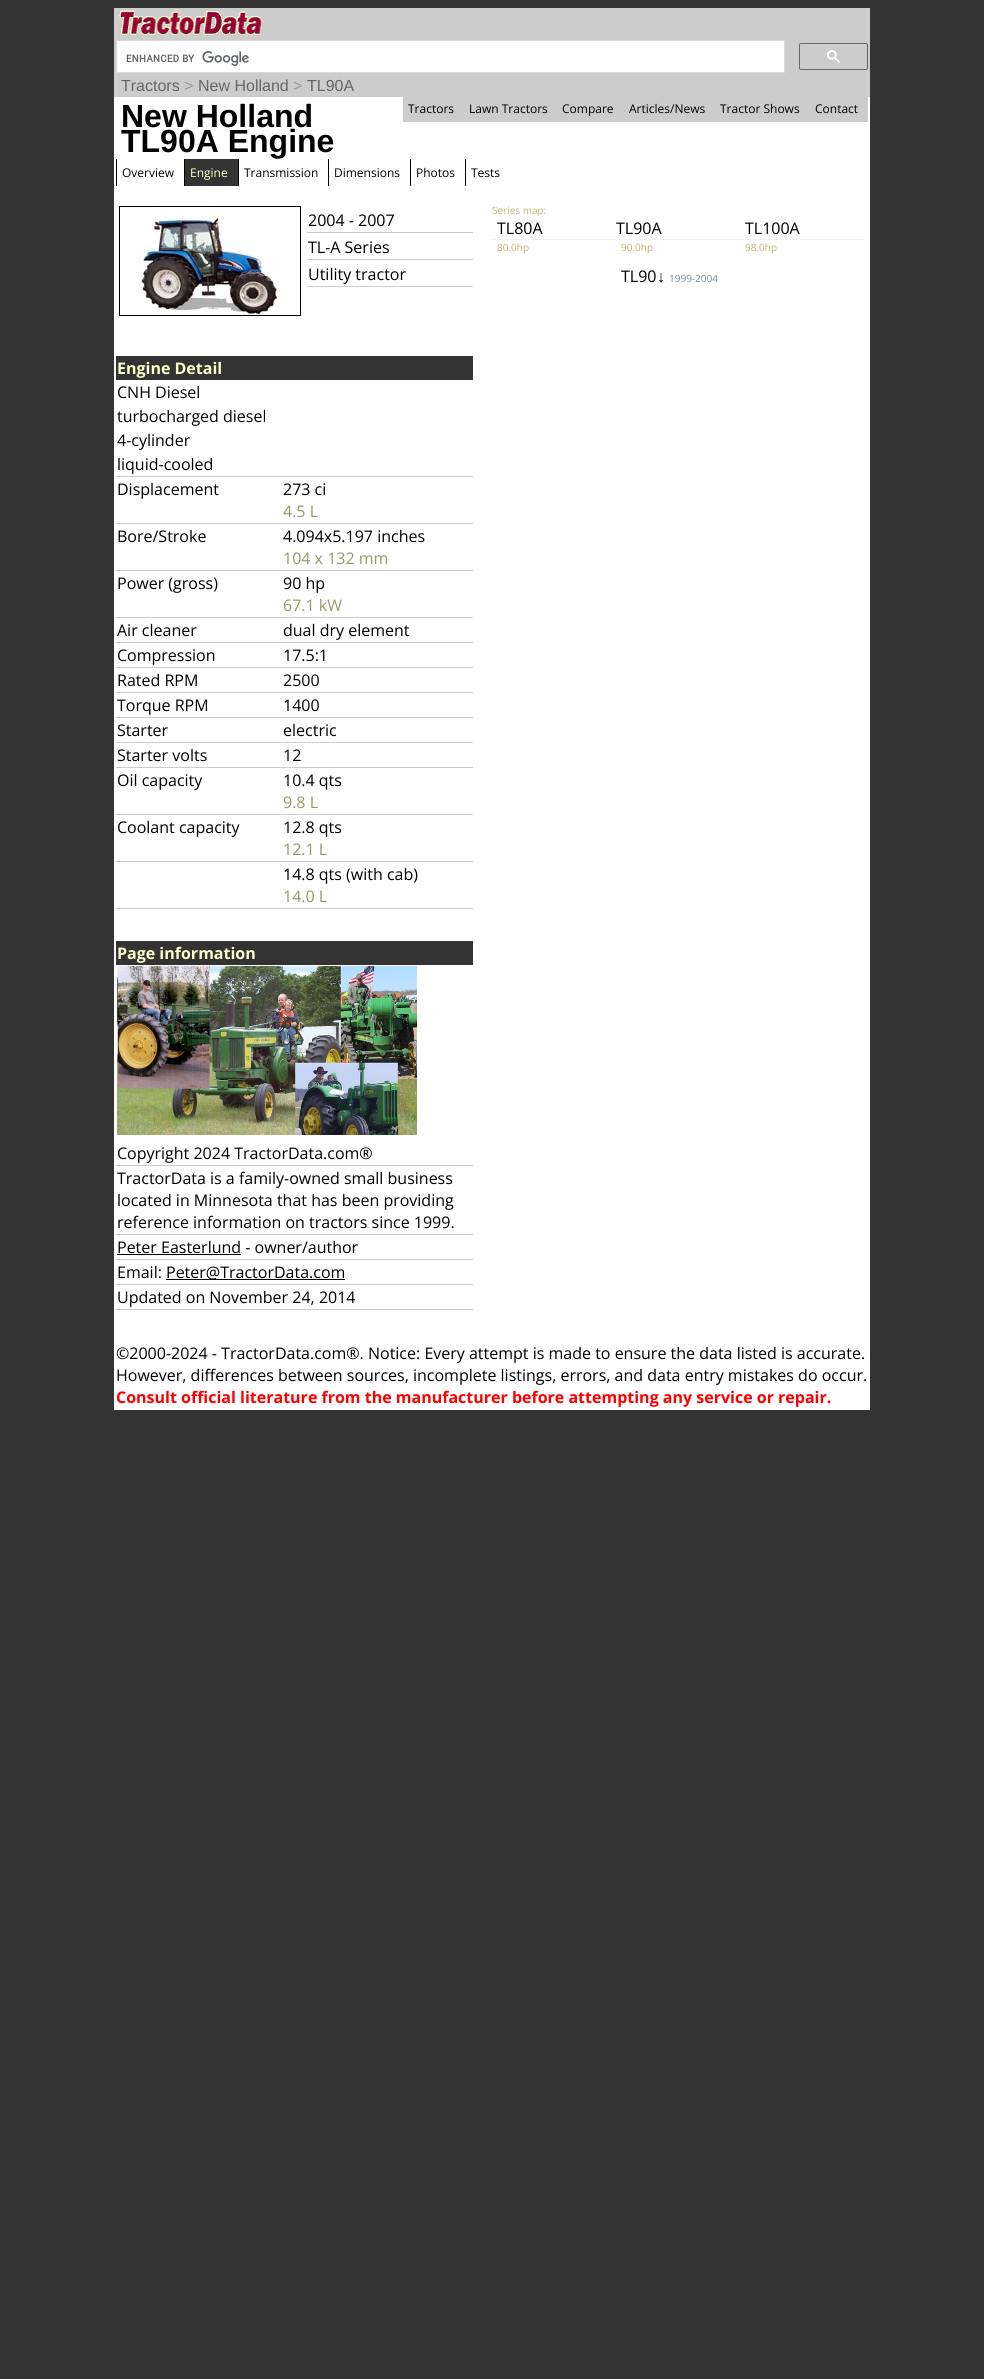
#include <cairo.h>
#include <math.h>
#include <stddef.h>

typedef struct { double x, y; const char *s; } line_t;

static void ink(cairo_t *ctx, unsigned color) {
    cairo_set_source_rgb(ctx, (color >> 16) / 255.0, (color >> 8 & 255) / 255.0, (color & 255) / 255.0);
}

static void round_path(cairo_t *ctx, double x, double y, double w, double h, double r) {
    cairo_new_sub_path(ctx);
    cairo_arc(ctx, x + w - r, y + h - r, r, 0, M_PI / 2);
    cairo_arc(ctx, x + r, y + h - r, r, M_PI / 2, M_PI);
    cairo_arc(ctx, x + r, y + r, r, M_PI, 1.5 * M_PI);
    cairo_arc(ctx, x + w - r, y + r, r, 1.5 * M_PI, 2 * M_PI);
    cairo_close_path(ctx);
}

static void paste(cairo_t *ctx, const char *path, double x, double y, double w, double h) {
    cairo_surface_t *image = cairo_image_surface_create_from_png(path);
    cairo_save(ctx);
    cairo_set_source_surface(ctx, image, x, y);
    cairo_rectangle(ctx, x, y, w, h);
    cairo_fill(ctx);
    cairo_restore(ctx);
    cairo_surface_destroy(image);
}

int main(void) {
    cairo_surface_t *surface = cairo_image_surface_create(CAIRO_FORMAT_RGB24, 984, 2379);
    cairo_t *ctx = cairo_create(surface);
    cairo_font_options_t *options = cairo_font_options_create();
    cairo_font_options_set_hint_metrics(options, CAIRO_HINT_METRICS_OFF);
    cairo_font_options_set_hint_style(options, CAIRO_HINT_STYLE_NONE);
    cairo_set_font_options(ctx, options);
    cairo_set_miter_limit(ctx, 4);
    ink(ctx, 0x333333);
    cairo_paint(ctx);
    ink(ctx, 0xCCCCCC);
    cairo_rectangle(ctx, 114, 8, 756, 89);
    cairo_fill(ctx);
    paste(ctx, "media/1.png", 119, 10, 144, 25);
    ink(ctx, 0xFFFFFF);
    cairo_rectangle(ctx, 116.5, 40.5, 668, 32);
    cairo_fill_preserve(ctx);
    ink(ctx, 0xD9D9D9);
    cairo_set_line_width(ctx, 1);
    cairo_stroke(ctx);
    paste(ctx, "media/2.png", 126, 51, 123, 15);
    round_path(ctx, 799.5, 43.5, 68, 26, 1.5);
    ink(ctx, 0x666666);
    cairo_stroke(ctx);
    paste(ctx, "media/3.png", 827, 50, 13, 13);
    cairo_select_font_face(ctx, "Liberation Sans", CAIRO_FONT_SLANT_NORMAL, CAIRO_FONT_WEIGHT_NORMAL);
    cairo_set_font_size(ctx, 16);
    cairo_move_to(ctx, 121, 91);
    cairo_show_text(ctx, "Tractors");
    ink(ctx, 0x999999);
    cairo_move_to(ctx, 184, 91);
    cairo_show_text(ctx, ">");
    ink(ctx, 0x666666);
    cairo_move_to(ctx, 198, 91);
    cairo_show_text(ctx, "New Holland");
    ink(ctx, 0x999999);
    cairo_move_to(ctx, 293, 91);
    cairo_show_text(ctx, ">");
    ink(ctx, 0x666666);
    cairo_move_to(ctx, 307, 91);
    cairo_show_text(ctx, "TL90A");
    ink(ctx, 0xFFFFFF);
    cairo_rectangle(ctx, 114, 97, 756, 1313);
    cairo_fill(ctx);
    ink(ctx, 0xCCCCCC);
    cairo_rectangle(ctx, 403, 97, 465, 25);
    cairo_fill(ctx);
    cairo_select_font_face(ctx, "Open Sans", CAIRO_FONT_SLANT_NORMAL, CAIRO_FONT_WEIGHT_NORMAL);
    cairo_set_font_size(ctx, 12);
    ink(ctx, 0x000000);
    {
        static const line_t items[] = {
            {408, 113, "Tractors"},
            {469, 113, "Lawn Tractors"},
            {562, 113, "Compare"},
            {629, 113, "Articles/News"},
            {720, 113, "Tractor Shows"},
            {815, 113, "Contact"},
        };
        for (size_t i = 0; i < sizeof items / sizeof *items; i++) {
            cairo_move_to(ctx, items[i].x, items[i].y);
            cairo_show_text(ctx, items[i].s);
        }
    }
    cairo_select_font_face(ctx, "Liberation Sans", CAIRO_FONT_SLANT_NORMAL, CAIRO_FONT_WEIGHT_BOLD);
    cairo_set_font_size(ctx, 32);
    cairo_move_to(ctx, 121, 127);
    cairo_show_text(ctx, "New Holland");
    cairo_move_to(ctx, 121, 152);
    cairo_show_text(ctx, "TL90A Engine");
    cairo_rectangle(ctx, 116, 159, 1, 27);
    cairo_fill(ctx);
    cairo_select_font_face(ctx, "Open Sans", CAIRO_FONT_SLANT_NORMAL, CAIRO_FONT_WEIGHT_NORMAL);
    cairo_set_font_size(ctx, 12);
    cairo_move_to(ctx, 122, 177);
    cairo_show_text(ctx, "Overview");
    cairo_rectangle(ctx, 184, 159, 1, 27);
    cairo_fill(ctx);
    ink(ctx, 0x333333);
    cairo_rectangle(ctx, 185, 159, 53, 27);
    cairo_fill(ctx);
    ink(ctx, 0xFFFFCC);
    cairo_move_to(ctx, 190, 177);
    cairo_show_text(ctx, "Engine");
    ink(ctx, 0x000000);
    cairo_rectangle(ctx, 238, 159, 1, 27);
    cairo_fill(ctx);
    cairo_move_to(ctx, 244, 177);
    cairo_show_text(ctx, "Transmission");
    cairo_rectangle(ctx, 328, 159, 1, 27);
    cairo_fill(ctx);
    cairo_move_to(ctx, 334, 177);
    cairo_show_text(ctx, "Dimensions");
    cairo_rectangle(ctx, 410, 159, 1, 27);
    cairo_fill(ctx);
    cairo_move_to(ctx, 416, 177);
    cairo_show_text(ctx, "Photos");
    cairo_rectangle(ctx, 465, 159, 1, 27);
    cairo_fill(ctx);
    cairo_move_to(ctx, 471, 177);
    cairo_show_text(ctx, "Tests");
    cairo_rectangle(ctx, 119.5, 206.5, 181, 109);
    cairo_stroke(ctx);
    paste(ctx, "media/4.png", 136, 207, 144, 108);
    ink(ctx, 0xCCCCCC);
    cairo_rectangle(ctx, 307, 232, 166, 1);
    cairo_fill(ctx);
    cairo_set_font_size(ctx, 16);
    ink(ctx, 0x000000);
    cairo_move_to(ctx, 308, 226);
    cairo_show_text(ctx, "2004 - 2007");
    ink(ctx, 0xCCCCCC);
    cairo_rectangle(ctx, 307, 259, 166, 1);
    cairo_fill(ctx);
    ink(ctx, 0x000000);
    cairo_move_to(ctx, 308, 253);
    cairo_show_text(ctx, "TL-A Series");
    ink(ctx, 0xCCCCCC);
    cairo_rectangle(ctx, 307, 286, 166, 1);
    cairo_fill(ctx);
    ink(ctx, 0x000000);
    cairo_move_to(ctx, 308, 280);
    cairo_show_text(ctx, "Utility tractor");
    cairo_set_font_size(ctx, 10);
    ink(ctx, 0xBDB76B);
    cairo_move_to(ctx, 492, 214);
    cairo_show_text(ctx, "Series map:");
    cairo_set_font_size(ctx, 16);
    ink(ctx, 0x000000);
    {
        static const line_t items[] = {
            {497, 234, "TL80A"},
            {616, 234, "TL90A"},
            {745, 234, "TL100A"},
        };
        for (size_t i = 0; i < sizeof items / sizeof *items; i++) {
            cairo_move_to(ctx, items[i].x, items[i].y);
            cairo_show_text(ctx, items[i].s);
        }
    }
    ink(ctx, 0xFAF0E6);
    cairo_rectangle(ctx, 492, 239, 372, 1);
    cairo_fill(ctx);
    cairo_set_font_size(ctx, 10);
    ink(ctx, 0xBDB76B);
    {
        static const line_t items[] = {
            {497, 251, "80.0hp"},
            {621, 251, "90.0hp"},
            {745, 251, "98.0hp"},
        };
        for (size_t i = 0; i < sizeof items / sizeof *items; i++) {
            cairo_move_to(ctx, items[i].x, items[i].y);
            cairo_show_text(ctx, items[i].s);
        }
    }
    cairo_set_font_size(ctx, 16);
    ink(ctx, 0x000000);
    cairo_move_to(ctx, 621, 282);
    cairo_show_text(ctx, "TL90");
    cairo_select_font_face(ctx, "Liberation Sans", CAIRO_FONT_SLANT_NORMAL, CAIRO_FONT_WEIGHT_NORMAL);
    cairo_move_to(ctx, 657, 282);
    cairo_show_text(ctx, "↓");
    cairo_select_font_face(ctx, "Open Sans", CAIRO_FONT_SLANT_NORMAL, CAIRO_FONT_WEIGHT_NORMAL);
    cairo_set_font_size(ctx, 10);
    ink(ctx, 0x778899);
    cairo_move_to(ctx, 669, 282);
    cairo_show_text(ctx, "1999-2004");
    ink(ctx, 0x333333);
    cairo_rectangle(ctx, 116, 356, 357, 24);
    cairo_fill(ctx);
    cairo_select_font_face(ctx, "Open Sans", CAIRO_FONT_SLANT_NORMAL, CAIRO_FONT_WEIGHT_BOLD);
    cairo_set_font_size(ctx, 16);
    ink(ctx, 0xFFFFCC);
    cairo_move_to(ctx, 117, 374);
    cairo_show_text(ctx, "Engine Detail");
    cairo_select_font_face(ctx, "Open Sans", CAIRO_FONT_SLANT_NORMAL, CAIRO_FONT_WEIGHT_NORMAL);
    ink(ctx, 0x000000);
    {
        static const line_t items[] = {
            {117, 398, "CNH Diesel"},
            {117, 422, "turbocharged diesel"},
            {117, 446, "4-cylinder"},
        };
        for (size_t i = 0; i < sizeof items / sizeof *items; i++) {
            cairo_move_to(ctx, items[i].x, items[i].y);
            cairo_show_text(ctx, items[i].s);
        }
    }
    ink(ctx, 0xCCCCCC);
    cairo_rectangle(ctx, 116, 476, 357, 1);
    cairo_fill(ctx);
    ink(ctx, 0x000000);
    cairo_move_to(ctx, 117, 470);
    cairo_show_text(ctx, "liquid-cooled");
    ink(ctx, 0xCCCCCC);
    cairo_rectangle(ctx, 116, 523, 357, 1);
    cairo_fill(ctx);
    ink(ctx, 0x000000);
    cairo_move_to(ctx, 117, 495);
    cairo_show_text(ctx, "Displacement");
    cairo_move_to(ctx, 283, 495);
    cairo_show_text(ctx, "273 ci");
    ink(ctx, 0x999966);
    cairo_move_to(ctx, 283, 517);
    cairo_show_text(ctx, "4.5 L");
    ink(ctx, 0xCCCCCC);
    cairo_rectangle(ctx, 116, 570, 357, 1);
    cairo_fill(ctx);
    ink(ctx, 0x000000);
    cairo_move_to(ctx, 117, 542);
    cairo_show_text(ctx, "Bore/Stroke");
    cairo_move_to(ctx, 283, 542);
    cairo_show_text(ctx, "4.094x5.197 inches");
    ink(ctx, 0x999966);
    cairo_move_to(ctx, 283, 564);
    cairo_show_text(ctx, "104 x 132 mm");
    ink(ctx, 0xCCCCCC);
    cairo_rectangle(ctx, 116, 617, 357, 1);
    cairo_fill(ctx);
    ink(ctx, 0x000000);
    cairo_move_to(ctx, 117, 589);
    cairo_show_text(ctx, "Power (gross)");
    cairo_move_to(ctx, 283, 589);
    cairo_show_text(ctx, "90 hp");
    ink(ctx, 0x999966);
    cairo_move_to(ctx, 283, 611);
    cairo_show_text(ctx, "67.1 kW");
    ink(ctx, 0xCCCCCC);
    cairo_rectangle(ctx, 116, 642, 357, 1);
    cairo_fill(ctx);
    ink(ctx, 0x000000);
    cairo_move_to(ctx, 117, 636);
    cairo_show_text(ctx, "Air cleaner");
    cairo_move_to(ctx, 283, 636);
    cairo_show_text(ctx, "dual dry element");
    ink(ctx, 0xCCCCCC);
    cairo_rectangle(ctx, 116, 667, 357, 1);
    cairo_fill(ctx);
    ink(ctx, 0x000000);
    cairo_move_to(ctx, 117, 661);
    cairo_show_text(ctx, "Compression");
    cairo_move_to(ctx, 283, 661);
    cairo_show_text(ctx, "17.5:1");
    ink(ctx, 0xCCCCCC);
    cairo_rectangle(ctx, 116, 692, 357, 1);
    cairo_fill(ctx);
    ink(ctx, 0x000000);
    cairo_move_to(ctx, 117, 686);
    cairo_show_text(ctx, "Rated RPM");
    cairo_move_to(ctx, 283, 686);
    cairo_show_text(ctx, "2500");
    ink(ctx, 0xCCCCCC);
    cairo_rectangle(ctx, 116, 717, 357, 1);
    cairo_fill(ctx);
    ink(ctx, 0x000000);
    cairo_move_to(ctx, 117, 711);
    cairo_show_text(ctx, "Torque RPM");
    cairo_move_to(ctx, 283, 711);
    cairo_show_text(ctx, "1400");
    ink(ctx, 0xCCCCCC);
    cairo_rectangle(ctx, 116, 742, 357, 1);
    cairo_fill(ctx);
    ink(ctx, 0x000000);
    cairo_move_to(ctx, 117, 736);
    cairo_show_text(ctx, "Starter");
    cairo_move_to(ctx, 283, 736);
    cairo_show_text(ctx, "electric");
    ink(ctx, 0xCCCCCC);
    cairo_rectangle(ctx, 116, 767, 357, 1);
    cairo_fill(ctx);
    ink(ctx, 0x000000);
    cairo_move_to(ctx, 117, 761);
    cairo_show_text(ctx, "Starter volts");
    cairo_move_to(ctx, 283, 761);
    cairo_show_text(ctx, "12");
    ink(ctx, 0xCCCCCC);
    cairo_rectangle(ctx, 116, 814, 357, 1);
    cairo_fill(ctx);
    ink(ctx, 0x000000);
    cairo_move_to(ctx, 117, 786);
    cairo_show_text(ctx, "Oil capacity");
    cairo_move_to(ctx, 283, 786);
    cairo_show_text(ctx, "10.4 qts");
    ink(ctx, 0x999966);
    cairo_move_to(ctx, 283, 808);
    cairo_show_text(ctx, "9.8 L");
    ink(ctx, 0xCCCCCC);
    cairo_rectangle(ctx, 116, 861, 357, 1);
    cairo_fill(ctx);
    ink(ctx, 0x000000);
    cairo_move_to(ctx, 117, 833);
    cairo_show_text(ctx, "Coolant capacity");
    cairo_move_to(ctx, 283, 833);
    cairo_show_text(ctx, "12.8 qts");
    ink(ctx, 0x999966);
    cairo_move_to(ctx, 283, 855);
    cairo_show_text(ctx, "12.1 L");
    ink(ctx, 0x000000);
    cairo_move_to(ctx, 283, 880);
    cairo_show_text(ctx, "14.8 qts (with cab)");
    ink(ctx, 0x999966);
    cairo_move_to(ctx, 283, 902);
    cairo_show_text(ctx, "14.0 L");
    ink(ctx, 0xCCCCCC);
    cairo_rectangle(ctx, 116, 908, 357, 1);
    cairo_fill(ctx);
    ink(ctx, 0x333333);
    cairo_rectangle(ctx, 116, 941, 357, 24);
    cairo_fill(ctx);
    cairo_select_font_face(ctx, "Open Sans", CAIRO_FONT_SLANT_NORMAL, CAIRO_FONT_WEIGHT_BOLD);
    ink(ctx, 0xFFFFCC);
    cairo_move_to(ctx, 117, 959);
    cairo_show_text(ctx, "Page information");
    paste(ctx, "media/5.png", 117, 966, 300, 169);
    ink(ctx, 0xCCCCCC);
    cairo_rectangle(ctx, 116, 1165, 357, 1);
    cairo_fill(ctx);
    cairo_select_font_face(ctx, "Open Sans", CAIRO_FONT_SLANT_NORMAL, CAIRO_FONT_WEIGHT_NORMAL);
    ink(ctx, 0x000000);
    cairo_move_to(ctx, 117, 1159);
    cairo_show_text(ctx, "Copyright 2024 TractorData.com®");
    ink(ctx, 0xCCCCCC);
    cairo_rectangle(ctx, 116, 1234, 357, 1);
    cairo_fill(ctx);
    ink(ctx, 0x000000);
    {
        static const line_t items[] = {
            {117, 1184, "TractorData is a family-owned small business"},
            {117, 1206, "located in Minnesota that has been providing"},
            {117, 1228, "reference information on tractors since 1999."},
        };
        for (size_t i = 0; i < sizeof items / sizeof *items; i++) {
            cairo_move_to(ctx, items[i].x, items[i].y);
            cairo_show_text(ctx, items[i].s);
        }
    }
    ink(ctx, 0xCCCCCC);
    cairo_rectangle(ctx, 116, 1259, 357, 1);
    cairo_fill(ctx);
    ink(ctx, 0x000000);
    cairo_move_to(ctx, 117, 1253);
    cairo_show_text(ctx, "Peter Easterlund - owner/author");
    cairo_rectangle(ctx, 117, 1254, 124, 1);
    cairo_fill(ctx);
    ink(ctx, 0xCCCCCC);
    cairo_rectangle(ctx, 116, 1284, 357, 1);
    cairo_fill(ctx);
    ink(ctx, 0x000000);
    cairo_move_to(ctx, 117, 1278);
    cairo_show_text(ctx, "Email:");
    cairo_rectangle(ctx, 166, 1279, 179, 1);
    cairo_fill(ctx);
    cairo_move_to(ctx, 166, 1278);
    cairo_show_text(ctx, "Peter@TractorData.com");
    ink(ctx, 0xCCCCCC);
    cairo_rectangle(ctx, 116, 1309, 357, 1);
    cairo_fill(ctx);
    ink(ctx, 0x000000);
    {
        static const line_t items[] = {
            {117, 1303, "Updated on November 24, 2014"},
            {116, 1359, "©2000-2024 - TractorData.com®. Notice: Every attempt is made to ensure the data listed is accurate."},
            {116, 1381, "However, differences between sources, incomplete listings, errors, and data entry mistakes do occur."},
        };
        for (size_t i = 0; i < sizeof items / sizeof *items; i++) {
            cairo_move_to(ctx, items[i].x, items[i].y);
            cairo_show_text(ctx, items[i].s);
        }
    }
    cairo_select_font_face(ctx, "Open Sans", CAIRO_FONT_SLANT_NORMAL, CAIRO_FONT_WEIGHT_BOLD);
    ink(ctx, 0xFF0000);
    cairo_move_to(ctx, 116, 1403);
    cairo_show_text(ctx, "Consult official literature from the manufacturer before attempting any service or repair.");
    cairo_surface_write_to_png(surface, "image.png");
    cairo_font_options_destroy(options);
    cairo_destroy(ctx);
    cairo_surface_destroy(surface);
    return 0;
}
